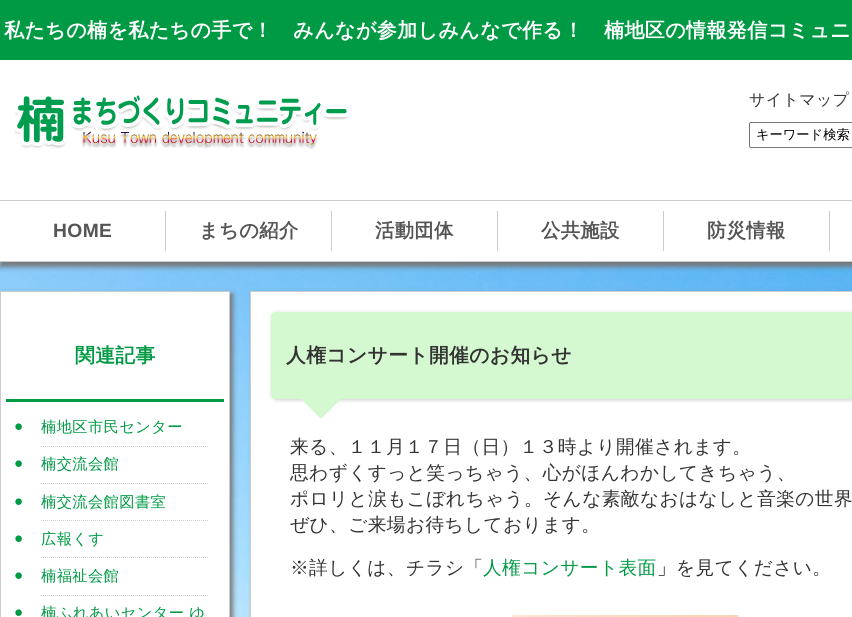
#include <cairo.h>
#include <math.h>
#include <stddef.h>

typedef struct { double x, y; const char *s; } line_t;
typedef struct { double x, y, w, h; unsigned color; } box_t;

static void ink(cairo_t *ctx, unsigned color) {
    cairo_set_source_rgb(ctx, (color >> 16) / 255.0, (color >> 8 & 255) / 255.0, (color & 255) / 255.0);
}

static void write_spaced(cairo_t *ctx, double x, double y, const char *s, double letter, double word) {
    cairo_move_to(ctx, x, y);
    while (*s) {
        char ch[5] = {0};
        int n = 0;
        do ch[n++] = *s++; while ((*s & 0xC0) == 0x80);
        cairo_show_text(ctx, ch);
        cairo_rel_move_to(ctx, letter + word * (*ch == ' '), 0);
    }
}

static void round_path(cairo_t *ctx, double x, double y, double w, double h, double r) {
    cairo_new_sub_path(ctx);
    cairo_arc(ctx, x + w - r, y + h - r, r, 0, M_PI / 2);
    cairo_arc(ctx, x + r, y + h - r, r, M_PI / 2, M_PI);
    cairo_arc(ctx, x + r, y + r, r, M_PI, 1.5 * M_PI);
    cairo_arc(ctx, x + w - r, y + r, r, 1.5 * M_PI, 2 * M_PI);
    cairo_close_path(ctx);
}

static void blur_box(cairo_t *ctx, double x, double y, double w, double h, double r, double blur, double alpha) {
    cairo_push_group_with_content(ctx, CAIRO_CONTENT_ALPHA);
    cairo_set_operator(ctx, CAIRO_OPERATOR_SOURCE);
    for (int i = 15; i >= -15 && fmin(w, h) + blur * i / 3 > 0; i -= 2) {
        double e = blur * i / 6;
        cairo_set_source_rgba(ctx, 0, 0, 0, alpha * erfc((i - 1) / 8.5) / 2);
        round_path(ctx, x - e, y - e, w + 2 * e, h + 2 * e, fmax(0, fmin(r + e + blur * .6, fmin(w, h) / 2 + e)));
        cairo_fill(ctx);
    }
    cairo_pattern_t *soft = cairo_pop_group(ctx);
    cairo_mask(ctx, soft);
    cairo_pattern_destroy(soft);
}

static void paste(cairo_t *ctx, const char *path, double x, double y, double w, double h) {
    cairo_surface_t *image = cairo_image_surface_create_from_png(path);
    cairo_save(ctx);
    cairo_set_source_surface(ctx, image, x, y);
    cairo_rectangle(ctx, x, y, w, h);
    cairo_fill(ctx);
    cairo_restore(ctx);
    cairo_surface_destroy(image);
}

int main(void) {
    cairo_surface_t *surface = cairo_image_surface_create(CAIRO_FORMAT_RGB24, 852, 617);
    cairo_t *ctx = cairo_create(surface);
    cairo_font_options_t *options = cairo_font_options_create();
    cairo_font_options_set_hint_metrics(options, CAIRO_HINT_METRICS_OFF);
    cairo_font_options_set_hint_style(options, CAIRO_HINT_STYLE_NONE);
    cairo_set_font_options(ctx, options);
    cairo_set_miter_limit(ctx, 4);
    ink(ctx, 0xFFFFFF);
    cairo_paint(ctx);
    ink(ctx, 0x009944);
    cairo_rectangle(ctx, 0, 0, 852, 60);
    cairo_fill(ctx);
    cairo_select_font_face(ctx, "WenQuanYi Zen Hei", CAIRO_FONT_SLANT_NORMAL, CAIRO_FONT_WEIGHT_BOLD);
    cairo_set_font_size(ctx, 20);
    ink(ctx, 0xFFFFFF);
    write_spaced(ctx, 4, 37, "私たちの楠を私たちの手で！　みんなが参加しみんなで作る！　楠地区の情報発信コミュニ", 0.4, 0);
    paste(ctx, "media/1.png", 14, 95, 336, 55);
    cairo_select_font_face(ctx, "WenQuanYi Zen Hei Medium", CAIRO_FONT_SLANT_NORMAL, CAIRO_FONT_WEIGHT_NORMAL);
    cairo_set_font_size(ctx, 16);
    ink(ctx, 0x333333);
    write_spaced(ctx, 749, 105, "サイトマップ", 0.4, 0);
    round_path(ctx, 749.5, 122.5, 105, 25, 1.5);
    ink(ctx, 0x767676);
    cairo_set_line_width(ctx, 1);
    cairo_stroke(ctx);
    cairo_set_font_size(ctx, 13.25);
    ink(ctx, 0x000000);
    cairo_move_to(ctx, 756, 139);
    cairo_show_text(ctx, "キーワード検索");
    paste(ctx, "media/2.png", 0, 262, 852, 355);
    cairo_save(ctx);
    cairo_rectangle(ctx, 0, 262, 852, 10);
    cairo_clip(ctx);
    ink(ctx, 0x777777);
    blur_box(ctx, 0, 205, 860, 62, 0, 2.5, 1);
    cairo_restore(ctx);
    {
        static const box_t items[] = {
            {0, 200, 852, 1, 0xCCCCCC},
            {0, 261, 852, 1, 0xCCCCCC},
            {165, 211, 1, 40, 0xCCCCCC},
        };
        for (size_t i = 0; i < sizeof items / sizeof *items; i++) {
            ink(ctx, items[i].color);
            cairo_rectangle(ctx, items[i].x, items[i].y, items[i].w, items[i].h);
            cairo_fill(ctx);
        }
    }
    cairo_select_font_face(ctx, "Liberation Sans", CAIRO_FONT_SLANT_NORMAL, CAIRO_FONT_WEIGHT_BOLD);
    cairo_set_font_size(ctx, 19.25);
    ink(ctx, 0x555555);
    write_spaced(ctx, 53, 237, "HOME", 0.4, 0);
    ink(ctx, 0xCCCCCC);
    cairo_rectangle(ctx, 331, 211, 1, 40);
    cairo_fill(ctx);
    cairo_select_font_face(ctx, "WenQuanYi Zen Hei", CAIRO_FONT_SLANT_NORMAL, CAIRO_FONT_WEIGHT_BOLD);
    ink(ctx, 0x555555);
    write_spaced(ctx, 199, 237, "まちの紹介", 0.4, 0);
    ink(ctx, 0xCCCCCC);
    cairo_rectangle(ctx, 497, 211, 1, 40);
    cairo_fill(ctx);
    ink(ctx, 0x555555);
    write_spaced(ctx, 375, 237, "活動団体", 0.4, 0);
    ink(ctx, 0xCCCCCC);
    cairo_rectangle(ctx, 663, 211, 1, 40);
    cairo_fill(ctx);
    ink(ctx, 0x555555);
    write_spaced(ctx, 541, 237, "公共施設", 0.4, 0);
    ink(ctx, 0xCCCCCC);
    cairo_rectangle(ctx, 829, 211, 1, 40);
    cairo_fill(ctx);
    ink(ctx, 0x555555);
    write_spaced(ctx, 707, 237, "防災情報", 0.4, 0);
    ink(ctx, 0x777777);
    blur_box(ctx, 3, 294, 230, 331, 0, 2.5, 1);
    ink(ctx, 0xFFFFFF);
    cairo_rectangle(ctx, 0.5, 291.5, 229, 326);
    cairo_fill_preserve(ctx);
    ink(ctx, 0xCCCCCC);
    cairo_stroke(ctx);
    ink(ctx, 0x009944);
    cairo_rectangle(ctx, 6, 399, 218, 3);
    cairo_fill(ctx);
    cairo_set_font_size(ctx, 19.75);
    write_spaced(ctx, 75, 362, "関連記事", 0.4, 0);
    cairo_new_path(ctx);
    cairo_move_to(ctx, 41, 446.5);
    cairo_line_to(ctx, 209, 446.5);
    ink(ctx, 0xCCCCCC);
    cairo_set_dash(ctx, (double[]){1, 1}, 2, 0);
    cairo_stroke(ctx);
    cairo_select_font_face(ctx, "Liberation Serif", CAIRO_FONT_SLANT_NORMAL, CAIRO_FONT_WEIGHT_NORMAL);
    cairo_set_font_size(ctx, 15.25);
    ink(ctx, 0x009944);
    write_spaced(ctx, 14, 431, "●", 0.4, 0);
    cairo_select_font_face(ctx, "WenQuanYi Zen Hei Medium", CAIRO_FONT_SLANT_NORMAL, CAIRO_FONT_WEIGHT_NORMAL);
    write_spaced(ctx, 41, 432, "楠地区市民センター", 0.4, 0);
    cairo_new_path(ctx);
    cairo_move_to(ctx, 41, 483.5);
    cairo_line_to(ctx, 209, 483.5);
    ink(ctx, 0xCCCCCC);
    cairo_stroke(ctx);
    cairo_select_font_face(ctx, "Liberation Serif", CAIRO_FONT_SLANT_NORMAL, CAIRO_FONT_WEIGHT_NORMAL);
    ink(ctx, 0x009944);
    write_spaced(ctx, 14, 468, "●", 0.4, 0);
    cairo_select_font_face(ctx, "WenQuanYi Zen Hei Medium", CAIRO_FONT_SLANT_NORMAL, CAIRO_FONT_WEIGHT_NORMAL);
    write_spaced(ctx, 41, 469, "楠交流会館", 0.4, 0);
    cairo_new_path(ctx);
    cairo_move_to(ctx, 41, 520.5);
    cairo_line_to(ctx, 209, 520.5);
    ink(ctx, 0xCCCCCC);
    cairo_stroke(ctx);
    cairo_select_font_face(ctx, "Liberation Serif", CAIRO_FONT_SLANT_NORMAL, CAIRO_FONT_WEIGHT_NORMAL);
    ink(ctx, 0x009944);
    write_spaced(ctx, 14, 506, "●", 0.4, 0);
    cairo_select_font_face(ctx, "WenQuanYi Zen Hei Medium", CAIRO_FONT_SLANT_NORMAL, CAIRO_FONT_WEIGHT_NORMAL);
    write_spaced(ctx, 41, 507, "楠交流会館図書室", 0.4, 0);
    cairo_new_path(ctx);
    cairo_move_to(ctx, 41, 557.5);
    cairo_line_to(ctx, 209, 557.5);
    ink(ctx, 0xCCCCCC);
    cairo_stroke(ctx);
    cairo_select_font_face(ctx, "Liberation Serif", CAIRO_FONT_SLANT_NORMAL, CAIRO_FONT_WEIGHT_NORMAL);
    ink(ctx, 0x009944);
    write_spaced(ctx, 14, 543, "●", 0.4, 0);
    cairo_select_font_face(ctx, "WenQuanYi Zen Hei Medium", CAIRO_FONT_SLANT_NORMAL, CAIRO_FONT_WEIGHT_NORMAL);
    write_spaced(ctx, 41, 544, "広報くす", 0.4, 0);
    cairo_new_path(ctx);
    cairo_move_to(ctx, 41, 595.5);
    cairo_line_to(ctx, 209, 595.5);
    ink(ctx, 0xCCCCCC);
    cairo_stroke(ctx);
    cairo_select_font_face(ctx, "Liberation Serif", CAIRO_FONT_SLANT_NORMAL, CAIRO_FONT_WEIGHT_NORMAL);
    ink(ctx, 0x009944);
    write_spaced(ctx, 14, 580, "●", 0.4, 0);
    cairo_select_font_face(ctx, "WenQuanYi Zen Hei Medium", CAIRO_FONT_SLANT_NORMAL, CAIRO_FONT_WEIGHT_NORMAL);
    write_spaced(ctx, 41, 581, "楠福祉会館", 0.4, 0);
    cairo_select_font_face(ctx, "Liberation Serif", CAIRO_FONT_SLANT_NORMAL, CAIRO_FONT_WEIGHT_NORMAL);
    write_spaced(ctx, 14, 617, "●", 0.4, 0);
    cairo_select_font_face(ctx, "WenQuanYi Zen Hei Medium", CAIRO_FONT_SLANT_NORMAL, CAIRO_FONT_WEIGHT_NORMAL);
    write_spaced(ctx, 41, 618, "楠ふれあいセンター ゆ", 0.4, 0);
    ink(ctx, 0x777777);
    blur_box(ctx, 253, 294, 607, 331, 0, 2.5, 1);
    ink(ctx, 0xFFFFFF);
    cairo_rectangle(ctx, 250.5, 291.5, 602, 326);
    cairo_fill_preserve(ctx);
    ink(ctx, 0xCCCCCC);
    cairo_set_dash(ctx, NULL, 0, 0);
    cairo_stroke(ctx);
    ink(ctx, 0x000000);
    blur_box(ctx, 272, 313, 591, 87, 5, 2, 0.2);
    ink(ctx, 0xD4F9D0);
    round_path(ctx, 271, 312, 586, 87, 5);
    cairo_fill(ctx);
    cairo_select_font_face(ctx, "WenQuanYi Zen Hei", CAIRO_FONT_SLANT_NORMAL, CAIRO_FONT_WEIGHT_BOLD);
    cairo_set_font_size(ctx, 19.75);
    ink(ctx, 0x333333);
    write_spaced(ctx, 286, 362, "人権コンサート開催のお知らせ", 0.4, 0);
    ink(ctx, 0xD4F9D0);
    cairo_new_path(ctx);
    cairo_move_to(ctx, 301, 399);
    cairo_line_to(ctx, 341, 399);
    cairo_line_to(ctx, 321, 419);
    cairo_close_path(ctx);
    cairo_fill(ctx);
    cairo_select_font_face(ctx, "WenQuanYi Zen Hei Medium", CAIRO_FONT_SLANT_NORMAL, CAIRO_FONT_WEIGHT_NORMAL);
    cairo_set_font_size(ctx, 18.7);
    ink(ctx, 0x333333);
    {
        static const line_t items[] = {
            {290, 453, "来る、１１月１７日（日）１３時より開催されます。"},
            {290, 479, "思わずくすっと笑っちゃう、心がほんわかしてきちゃう、"},
            {290, 505, "ポロリと涙もこぼれちゃう。そんな素敵なおはなしと音楽の世界"},
            {290, 531, "ぜひ、ご来場お待ちしております。"},
            {290, 574, "※詳しくは、チラシ「"},
        };
        for (size_t i = 0; i < sizeof items / sizeof *items; i++) {
            write_spaced(ctx, items[i].x, items[i].y, items[i].s, 0.4, 0);
        }
    }
    ink(ctx, 0x009944);
    write_spaced(ctx, 483, 574, "人権コンサート表面", 0.4, 0);
    ink(ctx, 0x000000);
    write_spaced(ctx, 657, 574, "」", 0.4, 0);
    ink(ctx, 0x333333);
    write_spaced(ctx, 676, 574, "を見てください。", 0.4, 0);
    paste(ctx, "media/3.png", 512, 615, 226, 2);
    cairo_surface_write_to_png(surface, "image.png");
    cairo_font_options_destroy(options);
    cairo_destroy(ctx);
    cairo_surface_destroy(surface);
    return 0;
}
